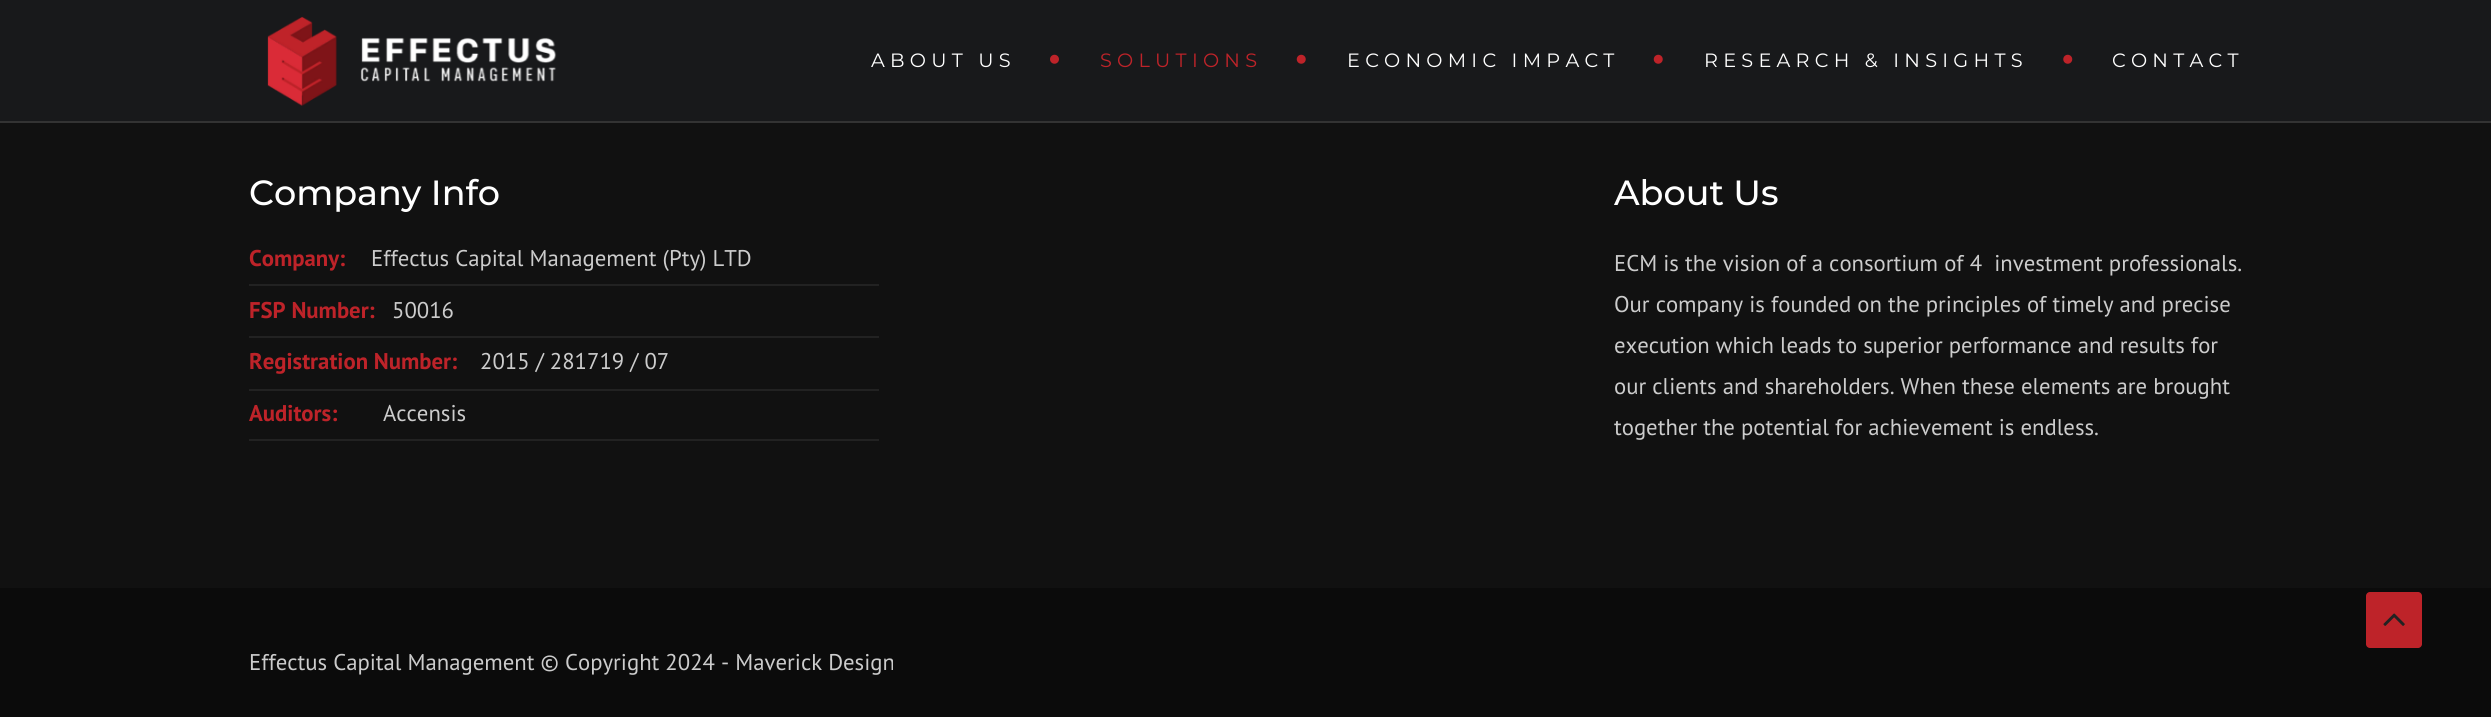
#include <cairo.h>
#include <math.h>
#include <stddef.h>

typedef struct { double x, y; const char *s; } line_t;

static void ink(cairo_t *ctx, unsigned color) {
    cairo_set_source_rgb(ctx, (color >> 16) / 255.0, (color >> 8 & 255) / 255.0, (color & 255) / 255.0);
}

static void write_spaced(cairo_t *ctx, double x, double y, const char *s, double letter, double word) {
    cairo_move_to(ctx, x, y);
    while (*s) {
        char ch[5] = {0};
        int n = 0;
        do ch[n++] = *s++; while ((*s & 0xC0) == 0x80);
        cairo_show_text(ctx, ch);
        cairo_rel_move_to(ctx, letter + word * (*ch == ' '), 0);
    }
}

static void round_path(cairo_t *ctx, double x, double y, double w, double h, double r) {
    cairo_new_sub_path(ctx);
    cairo_arc(ctx, x + w - r, y + h - r, r, 0, M_PI / 2);
    cairo_arc(ctx, x + r, y + h - r, r, M_PI / 2, M_PI);
    cairo_arc(ctx, x + r, y + r, r, M_PI, 1.5 * M_PI);
    cairo_arc(ctx, x + w - r, y + r, r, 1.5 * M_PI, 2 * M_PI);
    cairo_close_path(ctx);
}

static void paste(cairo_t *ctx, const char *path, double x, double y, double w, double h) {
    cairo_surface_t *image = cairo_image_surface_create_from_png(path);
    cairo_save(ctx);
    cairo_set_source_surface(ctx, image, x, y);
    cairo_rectangle(ctx, x, y, w, h);
    cairo_fill(ctx);
    cairo_restore(ctx);
    cairo_surface_destroy(image);
}

int main(void) {
    cairo_surface_t *surface = cairo_image_surface_create(CAIRO_FORMAT_RGB24, 2491, 717);
    cairo_t *ctx = cairo_create(surface);
    cairo_font_options_t *options = cairo_font_options_create();
    cairo_font_options_set_hint_metrics(options, CAIRO_HINT_METRICS_OFF);
    cairo_font_options_set_hint_style(options, CAIRO_HINT_STYLE_NONE);
    cairo_set_font_options(ctx, options);
    cairo_set_miter_limit(ctx, 4);
    ink(ctx, 0x111111);
    cairo_paint(ctx);
    ink(ctx, 0x18191B);
    cairo_rectangle(ctx, 0, 0, 2491, 121);
    cairo_fill(ctx);
    ink(ctx, 0x333333);
    cairo_rectangle(ctx, 0, 121, 2491, 2);
    cairo_fill(ctx);
    paste(ctx, "media/1.png", 267, 16, 290, 90);
    cairo_select_font_face(ctx, "Montserrat", CAIRO_FONT_SLANT_NORMAL, CAIRO_FONT_WEIGHT_NORMAL);
    cairo_set_font_size(ctx, 19.25);
    ink(ctx, 0xFFFFFF);
    write_spaced(ctx, 871, 67, "ABOUT US", 5.25, 0);
    paste(ctx, "media/2.png", 1050, 54, 9, 10);
    ink(ctx, 0xBE2329);
    write_spaced(ctx, 1100, 67, "SOLUTIONS", 5.25, 0);
    paste(ctx, "media/3.png", 1296, 54, 10, 10);
    ink(ctx, 0xFFFFFF);
    write_spaced(ctx, 1347, 67, "ECONOMIC IMPACT", 5.25, 0);
    paste(ctx, "media/3.png", 1653, 54, 10, 10);
    write_spaced(ctx, 1704, 67, "RESEARCH & INSIGHTS", 5.25, 0);
    paste(ctx, "media/4.png", 2063, 54, 10, 10);
    write_spaced(ctx, 2112, 67, "CONTACT", 5.25, 0);
    cairo_select_font_face(ctx, "Montserrat Medium", CAIRO_FONT_SLANT_NORMAL, CAIRO_FONT_WEIGHT_NORMAL);
    cairo_set_font_size(ctx, 35);
    cairo_move_to(ctx, 249, 205);
    cairo_show_text(ctx, "Company Info");
    ink(ctx, 0x222222);
    cairo_rectangle(ctx, 249, 284, 630, 2);
    cairo_fill(ctx);
    cairo_select_font_face(ctx, "PT Sans", CAIRO_FONT_SLANT_NORMAL, CAIRO_FONT_WEIGHT_BOLD);
    cairo_set_font_size(ctx, 22.75);
    ink(ctx, 0xBE2329);
    cairo_move_to(ctx, 249, 266);
    cairo_show_text(ctx, "Company:");
    cairo_select_font_face(ctx, "PT Sans", CAIRO_FONT_SLANT_NORMAL, CAIRO_FONT_WEIGHT_NORMAL);
    ink(ctx, 0xCCCCCC);
    cairo_move_to(ctx, 371, 266);
    cairo_show_text(ctx, "Effectus Capital Management (Pty) LTD");
    ink(ctx, 0x222222);
    cairo_rectangle(ctx, 249, 336, 630, 2);
    cairo_fill(ctx);
    cairo_select_font_face(ctx, "PT Sans", CAIRO_FONT_SLANT_NORMAL, CAIRO_FONT_WEIGHT_BOLD);
    ink(ctx, 0xBE2329);
    cairo_move_to(ctx, 249, 318);
    cairo_show_text(ctx, "FSP Number:");
    cairo_select_font_face(ctx, "PT Sans", CAIRO_FONT_SLANT_NORMAL, CAIRO_FONT_WEIGHT_NORMAL);
    ink(ctx, 0xCCCCCC);
    cairo_move_to(ctx, 392, 318);
    cairo_show_text(ctx, "50016");
    ink(ctx, 0x222222);
    cairo_rectangle(ctx, 249, 389, 630, 2);
    cairo_fill(ctx);
    cairo_select_font_face(ctx, "PT Sans", CAIRO_FONT_SLANT_NORMAL, CAIRO_FONT_WEIGHT_BOLD);
    ink(ctx, 0xBE2329);
    cairo_move_to(ctx, 249, 369);
    cairo_show_text(ctx, "Registration Number:");
    cairo_select_font_face(ctx, "PT Sans", CAIRO_FONT_SLANT_NORMAL, CAIRO_FONT_WEIGHT_NORMAL);
    ink(ctx, 0xCCCCCC);
    cairo_move_to(ctx, 480, 369);
    cairo_show_text(ctx, "2015 / 281719 / 07");
    ink(ctx, 0x222222);
    cairo_rectangle(ctx, 249, 439, 630, 2);
    cairo_fill(ctx);
    cairo_select_font_face(ctx, "PT Sans", CAIRO_FONT_SLANT_NORMAL, CAIRO_FONT_WEIGHT_BOLD);
    ink(ctx, 0xBE2329);
    cairo_move_to(ctx, 249, 421);
    cairo_show_text(ctx, "Auditors:");
    cairo_select_font_face(ctx, "PT Sans", CAIRO_FONT_SLANT_NORMAL, CAIRO_FONT_WEIGHT_NORMAL);
    ink(ctx, 0xCCCCCC);
    cairo_move_to(ctx, 383, 421);
    cairo_show_text(ctx, "Accensis");
    cairo_select_font_face(ctx, "Montserrat Medium", CAIRO_FONT_SLANT_NORMAL, CAIRO_FONT_WEIGHT_NORMAL);
    cairo_set_font_size(ctx, 35);
    ink(ctx, 0xFFFFFF);
    cairo_move_to(ctx, 1614, 205);
    cairo_show_text(ctx, "About Us");
    cairo_select_font_face(ctx, "PT Sans", CAIRO_FONT_SLANT_NORMAL, CAIRO_FONT_WEIGHT_NORMAL);
    cairo_set_font_size(ctx, 22.75);
    ink(ctx, 0xCCCCCC);
    {
        static const line_t items[] = {
            {1614, 271, "ECM is the vision of a consortium of 4  investment professionals."},
            {1614, 312, "Our company is founded on the principles of timely and precise"},
            {1614, 353, "execution which leads to superior performance and results for"},
            {1614, 394, "our clients and shareholders. When these elements are brought"},
            {1614, 435, "together the potential for achievement is endless."},
        };
        for (size_t i = 0; i < sizeof items / sizeof *items; i++) {
            cairo_move_to(ctx, items[i].x, items[i].y);
            cairo_show_text(ctx, items[i].s);
        }
    }
    ink(ctx, 0x0B0B0B);
    cairo_rectangle(ctx, 0, 588, 2491, 129);
    cairo_fill(ctx);
    ink(ctx, 0xBE2329);
    round_path(ctx, 2366, 592, 56, 56, 4);
    cairo_fill(ctx);
    paste(ctx, "media/5.png", 2383, 613, 22, 13);
    ink(ctx, 0xCCCCCC);
    cairo_move_to(ctx, 249, 670);
    cairo_show_text(ctx, "Effectus Capital Management © Copyright 2024 - Maverick Design");
    cairo_surface_write_to_png(surface, "image.png");
    cairo_font_options_destroy(options);
    cairo_destroy(ctx);
    cairo_surface_destroy(surface);
    return 0;
}
